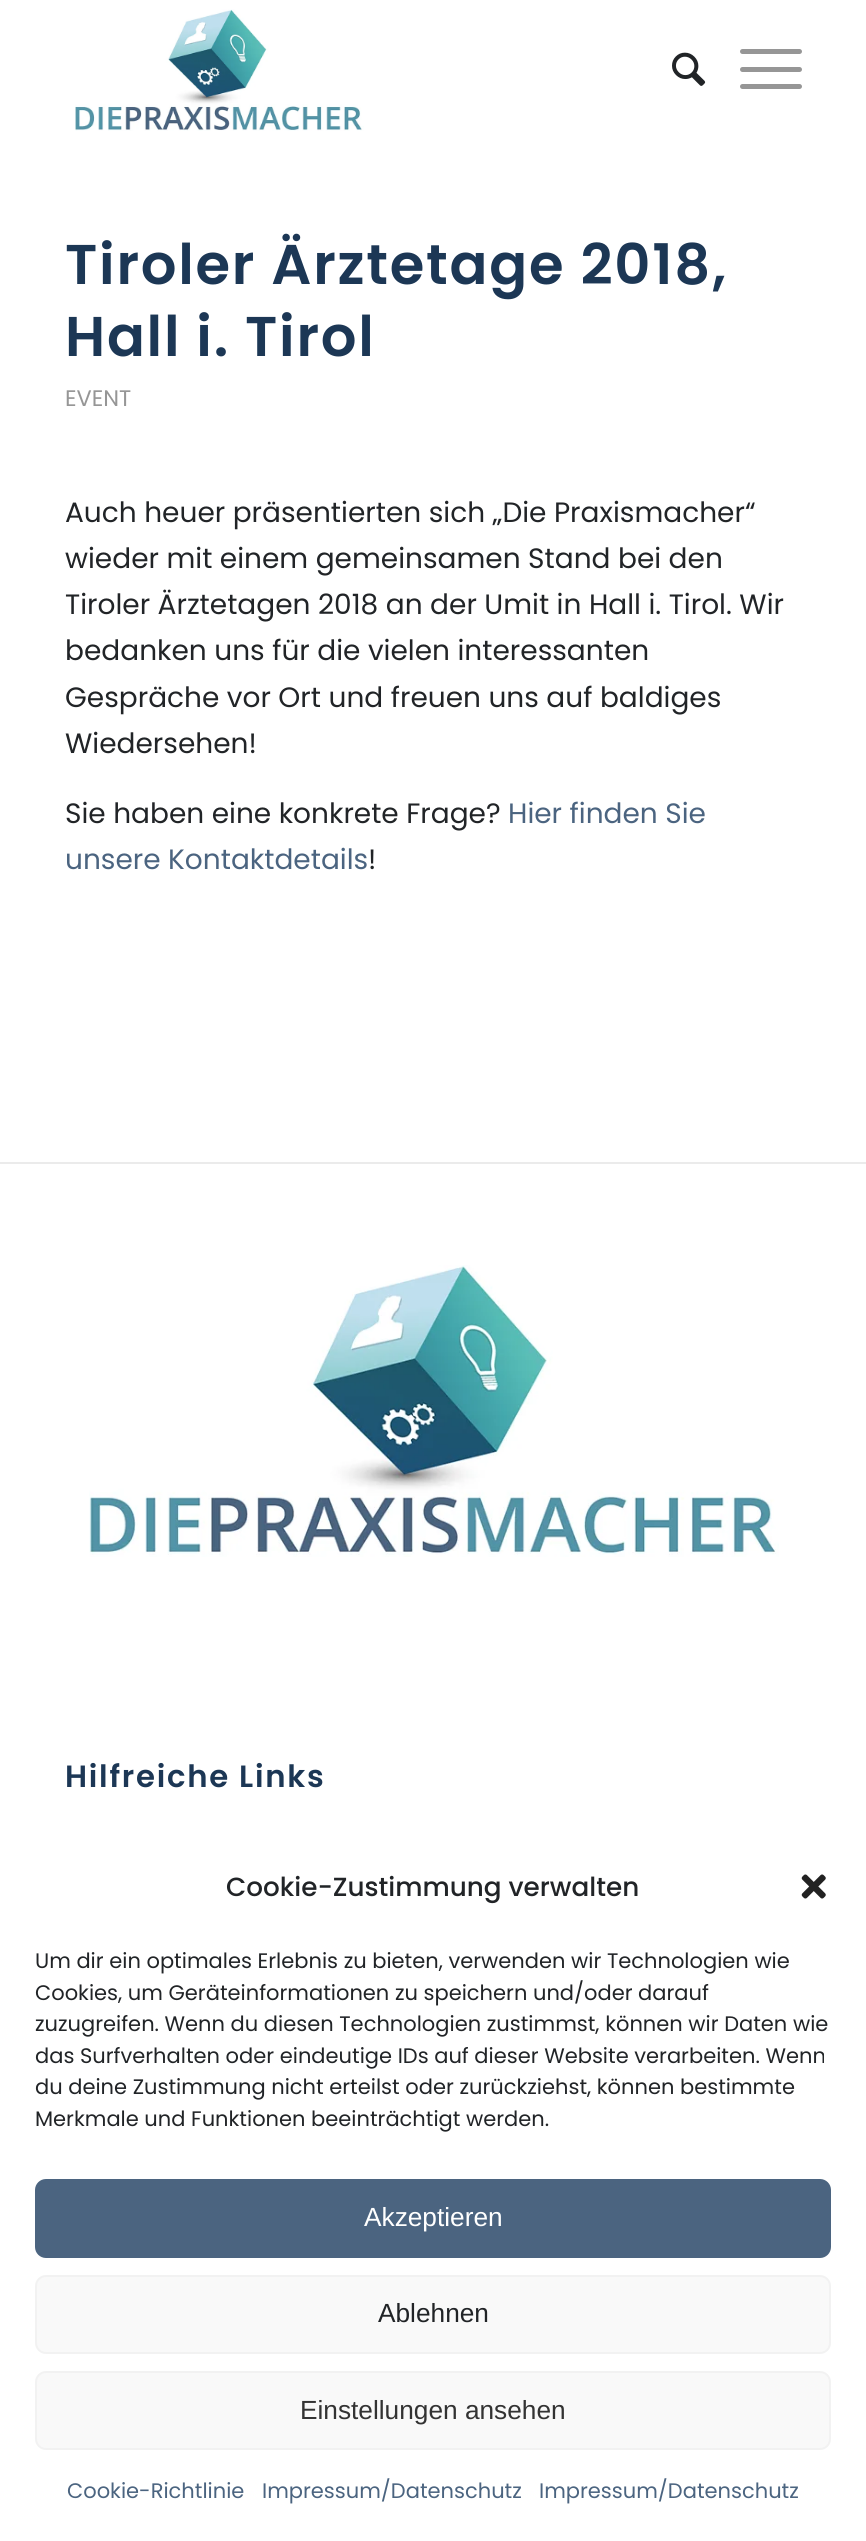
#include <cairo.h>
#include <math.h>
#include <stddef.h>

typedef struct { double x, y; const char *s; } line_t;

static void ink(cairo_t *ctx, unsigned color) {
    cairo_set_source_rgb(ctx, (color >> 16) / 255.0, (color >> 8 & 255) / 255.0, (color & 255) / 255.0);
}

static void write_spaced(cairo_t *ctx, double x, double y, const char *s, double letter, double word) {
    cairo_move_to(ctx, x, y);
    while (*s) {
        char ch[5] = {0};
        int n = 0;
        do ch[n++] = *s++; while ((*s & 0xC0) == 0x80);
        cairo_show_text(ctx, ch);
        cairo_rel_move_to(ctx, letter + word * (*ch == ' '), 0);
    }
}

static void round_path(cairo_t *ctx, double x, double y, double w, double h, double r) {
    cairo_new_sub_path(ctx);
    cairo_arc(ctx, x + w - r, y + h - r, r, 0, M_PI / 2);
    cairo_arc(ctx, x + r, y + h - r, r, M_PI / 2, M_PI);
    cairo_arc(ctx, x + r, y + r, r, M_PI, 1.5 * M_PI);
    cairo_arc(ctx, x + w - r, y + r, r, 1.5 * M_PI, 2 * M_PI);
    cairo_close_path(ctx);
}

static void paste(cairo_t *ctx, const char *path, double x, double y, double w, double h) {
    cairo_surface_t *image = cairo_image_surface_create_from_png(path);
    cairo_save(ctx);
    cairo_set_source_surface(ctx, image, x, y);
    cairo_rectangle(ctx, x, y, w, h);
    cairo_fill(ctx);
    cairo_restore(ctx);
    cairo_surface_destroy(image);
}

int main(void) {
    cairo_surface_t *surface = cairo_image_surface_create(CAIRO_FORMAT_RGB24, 866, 2541);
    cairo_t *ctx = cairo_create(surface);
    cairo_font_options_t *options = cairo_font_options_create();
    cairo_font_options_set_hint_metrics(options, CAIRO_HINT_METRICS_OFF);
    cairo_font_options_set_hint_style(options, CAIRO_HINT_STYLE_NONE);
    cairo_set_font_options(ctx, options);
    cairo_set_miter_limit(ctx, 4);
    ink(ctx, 0xFFFFFF);
    cairo_paint(ctx);
    paste(ctx, "media/1.png", 75, 9, 289, 122);
    paste(ctx, "media/2.png", 672, 52, 34, 34);
    ink(ctx, 0x969696);
    round_path(ctx, 740, 67, 62, 5, 2.5);
    cairo_fill(ctx);
    round_path(ctx, 740, 49, 62, 5, 2.5);
    cairo_fill(ctx);
    round_path(ctx, 740, 84, 62, 5, 2.5);
    cairo_fill(ctx);
    cairo_select_font_face(ctx, "Poppins SemiBold", CAIRO_FONT_SLANT_NORMAL, CAIRO_FONT_WEIGHT_NORMAL);
    cairo_set_font_size(ctx, 56);
    ink(ctx, 0x1C3755);
    write_spaced(ctx, 65, 284, "Tiroler Ärztetage 2018,", 1.75, 0);
    write_spaced(ctx, 65, 356, "Hall i. Tirol", 1.75, 0);
    cairo_select_font_face(ctx, "Poppins", CAIRO_FONT_SLANT_NORMAL, CAIRO_FONT_WEIGHT_NORMAL);
    cairo_set_font_size(ctx, 22.5);
    ink(ctx, 0x969696);
    cairo_move_to(ctx, 65, 406);
    cairo_show_text(ctx, "EVENT");
    cairo_set_font_size(ctx, 28);
    ink(ctx, 0x212427);
    {
        static const line_t items[] = {
            {65, 522, "Auch heuer präsentierten sich „Die Praxismacher“"},
            {65, 568, "wieder mit einem gemeinsamen Stand bei den"},
            {65, 614, "Tiroler Ärztetagen 2018 an der Umit in Hall i. Tirol. Wir"},
            {65, 660, "bedanken uns für die vielen interessanten"},
            {65, 707, "Gespräche vor Ort und freuen uns auf baldiges"},
            {65, 753, "Wiedersehen!"},
            {65, 823, "Sie haben eine konkrete Frage?"},
        };
        for (size_t i = 0; i < sizeof items / sizeof *items; i++) {
            cairo_move_to(ctx, items[i].x, items[i].y);
            cairo_show_text(ctx, items[i].s);
        }
    }
    ink(ctx, 0x4B6480);
    cairo_move_to(ctx, 508, 823);
    cairo_show_text(ctx, "Hier finden Sie");
    cairo_move_to(ctx, 65, 869);
    cairo_show_text(ctx, "unsere Kontaktdetails");
    ink(ctx, 0x212427);
    cairo_move_to(ctx, 368, 869);
    cairo_show_text(ctx, "!");
    ink(ctx, 0xEBEBEB);
    cairo_rectangle(ctx, 0, 1162, 866, 2);
    cairo_fill(ctx);
    paste(ctx, "media/3.png", 89, 1265, 690, 292);
    cairo_select_font_face(ctx, "Poppins SemiBold", CAIRO_FONT_SLANT_NORMAL, CAIRO_FONT_WEIGHT_NORMAL);
    cairo_set_font_size(ctx, 30.75);
    ink(ctx, 0x1C3755);
    write_spaced(ctx, 65, 1787, "Hilfreiche Links", 1.75, 0);
    cairo_select_font_face(ctx, "Poppins Medium", CAIRO_FONT_SLANT_NORMAL, CAIRO_FONT_WEIGHT_NORMAL);
    cairo_set_font_size(ctx, 26.25);
    ink(ctx, 0x212427);
    cairo_move_to(ctx, 226, 1896);
    cairo_show_text(ctx, "Cookie-Zustimmung verwalten");
    paste(ctx, "media/4.png", 801, 1874, 25, 25);
    cairo_select_font_face(ctx, "Poppins", CAIRO_FONT_SLANT_NORMAL, CAIRO_FONT_WEIGHT_NORMAL);
    cairo_set_font_size(ctx, 21);
    {
        static const line_t items[] = {
            {35, 1968, "Um dir ein optimales Erlebnis zu bieten, verwenden wir Technologien wie"},
            {35, 2000, "Cookies, um Geräteinformationen zu speichern und/oder darauf"},
            {35, 2031, "zuzugreifen. Wenn du diesen Technologien zustimmst, können wir Daten wie"},
            {35, 2063, "das Surfverhalten oder eindeutige IDs auf dieser Website verarbeiten. Wenn"},
            {35, 2094, "du deine Zustimmung nicht erteilst oder zurückziehst, können bestimmte"},
            {35, 2126, "Merkmale und Funktionen beeinträchtigt werden."},
        };
        for (size_t i = 0; i < sizeof items / sizeof *items; i++) {
            cairo_move_to(ctx, items[i].x, items[i].y);
            cairo_show_text(ctx, items[i].s);
        }
    }
    ink(ctx, 0x4B6480);
    round_path(ctx, 36, 2180, 794, 77, 10);
    cairo_fill_preserve(ctx);
    cairo_stroke(ctx);
    cairo_select_font_face(ctx, "Liberation Sans", CAIRO_FONT_SLANT_NORMAL, CAIRO_FONT_WEIGHT_NORMAL);
    cairo_set_font_size(ctx, 26.25);
    ink(ctx, 0xFFFFFF);
    cairo_move_to(ctx, 364, 2226);
    cairo_show_text(ctx, "Akzeptieren");
    ink(ctx, 0xF9F9F9);
    round_path(ctx, 36, 2276, 794, 77, 10);
    cairo_fill_preserve(ctx);
    ink(ctx, 0xF2F2F2);
    cairo_stroke(ctx);
    ink(ctx, 0x212427);
    cairo_move_to(ctx, 378, 2322);
    cairo_show_text(ctx, "Ablehnen");
    ink(ctx, 0xF9F9F9);
    round_path(ctx, 36, 2372, 794, 77, 10);
    cairo_fill_preserve(ctx);
    ink(ctx, 0xF2F2F2);
    cairo_stroke(ctx);
    ink(ctx, 0x333333);
    cairo_move_to(ctx, 300, 2419);
    cairo_show_text(ctx, "Einstellungen ansehen");
    cairo_select_font_face(ctx, "Poppins", CAIRO_FONT_SLANT_NORMAL, CAIRO_FONT_WEIGHT_NORMAL);
    cairo_set_font_size(ctx, 21);
    ink(ctx, 0x4B6480);
    {
        static const line_t items[] = {
            {67, 2498, "Cookie-Richtlinie"},
            {262, 2498, "Impressum/Datenschutz"},
            {539, 2498, "Impressum/Datenschutz"},
        };
        for (size_t i = 0; i < sizeof items / sizeof *items; i++) {
            cairo_move_to(ctx, items[i].x, items[i].y);
            cairo_show_text(ctx, items[i].s);
        }
    }
    cairo_surface_write_to_png(surface, "image.png");
    cairo_font_options_destroy(options);
    cairo_destroy(ctx);
    cairo_surface_destroy(surface);
    return 0;
}
